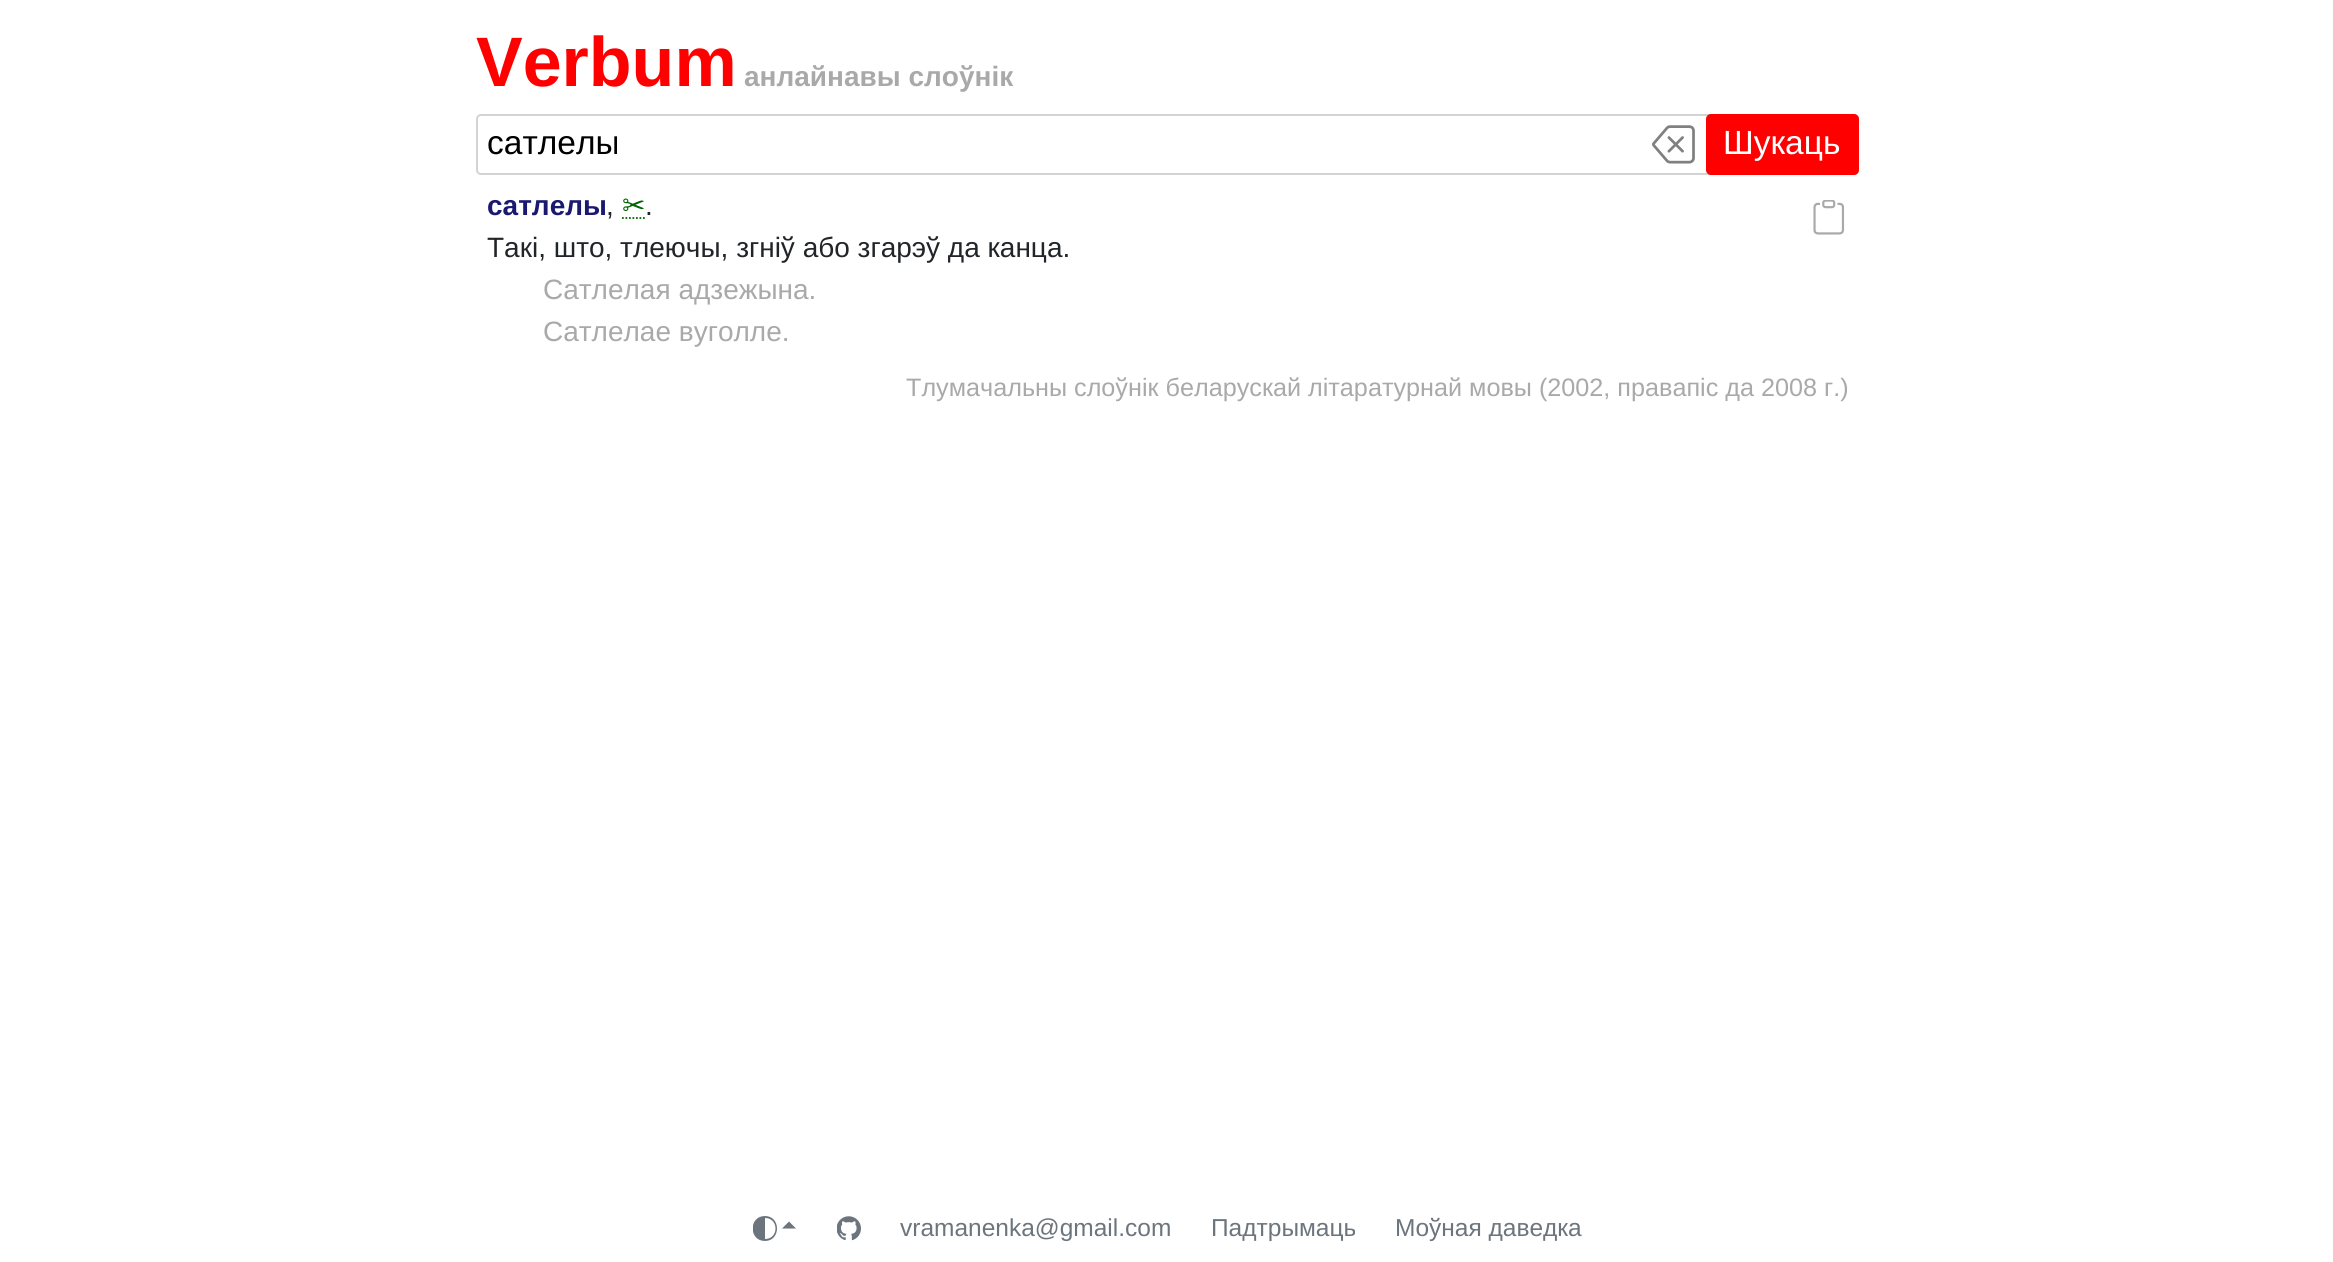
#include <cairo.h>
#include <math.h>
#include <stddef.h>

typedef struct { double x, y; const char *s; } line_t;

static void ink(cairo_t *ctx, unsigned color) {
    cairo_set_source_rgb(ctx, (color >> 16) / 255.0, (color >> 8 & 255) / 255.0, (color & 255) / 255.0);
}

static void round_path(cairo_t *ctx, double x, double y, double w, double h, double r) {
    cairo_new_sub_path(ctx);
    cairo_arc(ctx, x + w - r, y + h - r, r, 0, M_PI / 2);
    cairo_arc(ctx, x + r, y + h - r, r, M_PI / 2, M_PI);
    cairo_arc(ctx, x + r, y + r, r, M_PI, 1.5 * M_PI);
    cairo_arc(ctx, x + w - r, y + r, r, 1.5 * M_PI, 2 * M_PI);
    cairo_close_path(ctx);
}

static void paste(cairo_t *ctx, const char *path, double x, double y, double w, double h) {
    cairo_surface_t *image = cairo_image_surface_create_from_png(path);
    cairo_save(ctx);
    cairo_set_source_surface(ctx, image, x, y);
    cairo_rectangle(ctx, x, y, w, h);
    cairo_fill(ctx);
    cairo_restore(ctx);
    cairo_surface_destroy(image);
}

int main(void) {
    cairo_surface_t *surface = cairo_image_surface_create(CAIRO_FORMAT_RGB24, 2333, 1262);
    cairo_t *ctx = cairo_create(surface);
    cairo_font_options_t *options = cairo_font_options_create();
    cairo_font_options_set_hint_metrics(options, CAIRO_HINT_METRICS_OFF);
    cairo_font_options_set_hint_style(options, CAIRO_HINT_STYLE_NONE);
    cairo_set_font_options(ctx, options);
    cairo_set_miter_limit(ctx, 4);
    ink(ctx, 0xFFFFFF);
    cairo_paint(ctx);
    cairo_select_font_face(ctx, "Liberation Sans", CAIRO_FONT_SLANT_NORMAL, CAIRO_FONT_WEIGHT_BOLD);
    cairo_set_font_size(ctx, 70);
    ink(ctx, 0xFF0000);
    cairo_move_to(ctx, 476, 86);
    cairo_show_text(ctx, "Verbum");
    cairo_set_font_size(ctx, 28);
    ink(ctx, 0xA9A9A9);
    cairo_move_to(ctx, 744, 86);
    cairo_show_text(ctx, "анлайнавы слоўнік");
    round_path(ctx, 477, 115, 1381, 59, 4);
    ink(ctx, 0xD3D3D3);
    cairo_stroke(ctx);
    cairo_select_font_face(ctx, "Liberation Sans", CAIRO_FONT_SLANT_NORMAL, CAIRO_FONT_WEIGHT_NORMAL);
    cairo_set_font_size(ctx, 33.5);
    ink(ctx, 0x000000);
    cairo_move_to(ctx, 487, 154);
    cairo_show_text(ctx, "сатлелы");
    paste(ctx, "media/1.png", 1652, 125, 43, 39);
    ink(ctx, 0xFF0000);
    round_path(ctx, 1706, 114, 153, 61, 5);
    cairo_fill(ctx);
    ink(ctx, 0xFFFFFF);
    cairo_move_to(ctx, 1723, 154);
    cairo_show_text(ctx, "Шукаць");
    cairo_select_font_face(ctx, "Liberation Sans", CAIRO_FONT_SLANT_NORMAL, CAIRO_FONT_WEIGHT_BOLD);
    cairo_set_font_size(ctx, 28);
    ink(ctx, 0x191970);
    cairo_move_to(ctx, 487, 215);
    cairo_show_text(ctx, "сатлелы");
    cairo_select_font_face(ctx, "Liberation Sans", CAIRO_FONT_SLANT_NORMAL, CAIRO_FONT_WEIGHT_NORMAL);
    ink(ctx, 0x212529);
    cairo_move_to(ctx, 606, 215);
    cairo_show_text(ctx, ",");
    cairo_select_font_face(ctx, "DejaVu Sans", CAIRO_FONT_SLANT_NORMAL, CAIRO_FONT_WEIGHT_NORMAL);
    ink(ctx, 0x006400);
    cairo_move_to(ctx, 622, 215);
    cairo_show_text(ctx, "✂");
    cairo_new_path(ctx);
    cairo_move_to(ctx, 622, 218);
    cairo_line_to(ctx, 645.5, 218);
    cairo_set_line_width(ctx, 1.8);
    cairo_set_dash(ctx, (double[]){1.75, 1.75}, 2, 0);
    cairo_stroke(ctx);
    cairo_select_font_face(ctx, "Liberation Sans", CAIRO_FONT_SLANT_NORMAL, CAIRO_FONT_WEIGHT_NORMAL);
    ink(ctx, 0x212529);
    cairo_move_to(ctx, 645, 215);
    cairo_show_text(ctx, ".");
    cairo_move_to(ctx, 487, 257);
    cairo_show_text(ctx, "Такі, што, тлеючы, згніў або згарэў да канца.");
    ink(ctx, 0xA9A9A9);
    cairo_move_to(ctx, 543, 299);
    cairo_show_text(ctx, "Сатлелая адзежына.");
    cairo_move_to(ctx, 543, 341);
    cairo_show_text(ctx, "Сатлелае вуголле.");
    paste(ctx, "media/2.png", 1813, 200, 32, 35);
    cairo_set_font_size(ctx, 25.2);
    cairo_move_to(ctx, 906, 396);
    cairo_show_text(ctx, "Тлумачальны слоўнік беларускай літаратурнай мовы (2002, правапіс да 2008 г.)");
    cairo_save(ctx);
    cairo_rectangle(ctx, 753, 1216, 24, 25);
    cairo_clip(ctx);
    ink(ctx, 0x6C757D);
    cairo_new_path(ctx);
    cairo_move_to(ctx, 765, 1239);
    cairo_curve_to(ctx, 779, 1239, 779, 1218, 765, 1218);
    cairo_close_path(ctx);
    cairo_move_to(ctx, 765, 1241);
    cairo_curve_to(ctx, 748.5, 1241, 748.5, 1216, 765, 1216);
    cairo_curve_to(ctx, 781, 1216, 781, 1241, 765, 1241);
    cairo_fill(ctx);
    cairo_restore(ctx);
    ink(ctx, 0x6C757D);
    cairo_new_path(ctx);
    cairo_move_to(ctx, 796, 1228.5);
    cairo_line_to(ctx, 782, 1228.5);
    cairo_line_to(ctx, 789, 1221.5);
    cairo_close_path(ctx);
    cairo_fill(ctx);
    paste(ctx, "media/3.png", 837, 1216, 24, 25);
    cairo_set_font_size(ctx, 24.5);
    {
        static const line_t items[] = {
            {900, 1236, "vramanenka@gmail.com"},
            {1211, 1236, "Падтрымаць"},
            {1395, 1236, "Моўная даведка"},
        };
        for (size_t i = 0; i < sizeof items / sizeof *items; i++) {
            cairo_move_to(ctx, items[i].x, items[i].y);
            cairo_show_text(ctx, items[i].s);
        }
    }
    cairo_surface_write_to_png(surface, "image.png");
    cairo_font_options_destroy(options);
    cairo_destroy(ctx);
    cairo_surface_destroy(surface);
    return 0;
}
